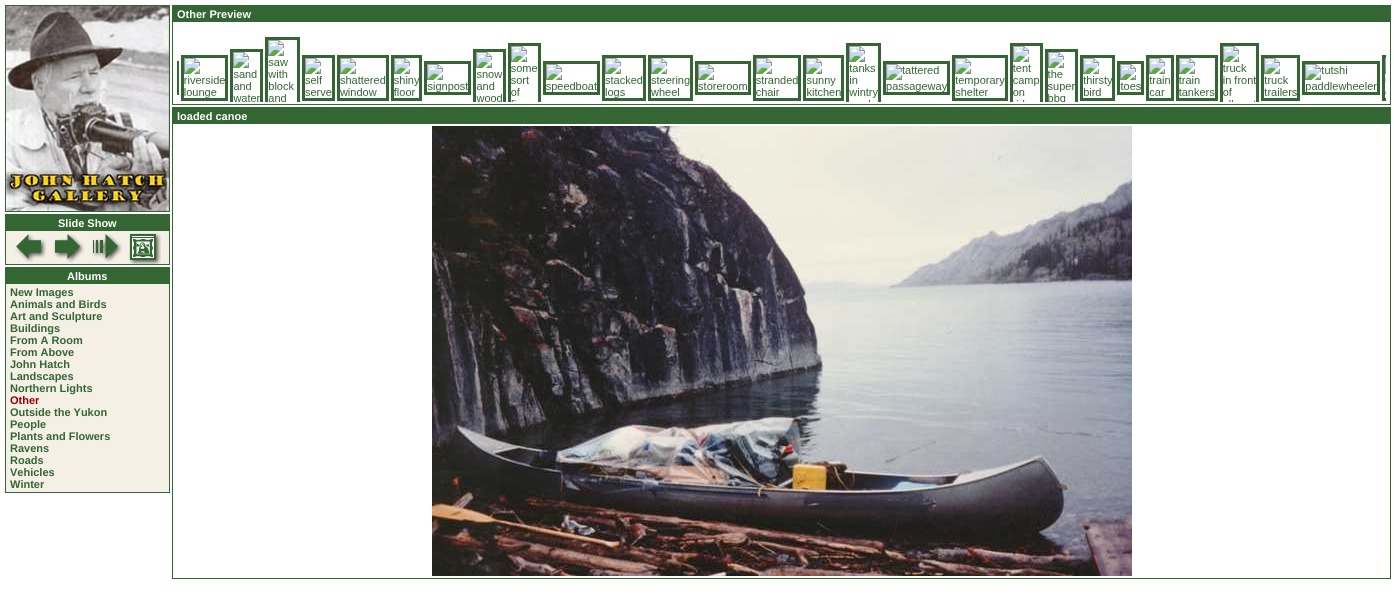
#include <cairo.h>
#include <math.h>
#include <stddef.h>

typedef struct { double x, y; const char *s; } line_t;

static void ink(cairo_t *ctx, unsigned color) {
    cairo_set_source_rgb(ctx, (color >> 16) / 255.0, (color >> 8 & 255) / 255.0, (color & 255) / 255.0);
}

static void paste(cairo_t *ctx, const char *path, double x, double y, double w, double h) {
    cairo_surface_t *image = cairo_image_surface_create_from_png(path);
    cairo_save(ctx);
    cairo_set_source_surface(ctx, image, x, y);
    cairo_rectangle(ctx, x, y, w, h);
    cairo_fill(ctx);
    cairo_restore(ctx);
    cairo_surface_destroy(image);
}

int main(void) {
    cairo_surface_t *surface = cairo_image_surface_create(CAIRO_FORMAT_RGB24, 1394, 606);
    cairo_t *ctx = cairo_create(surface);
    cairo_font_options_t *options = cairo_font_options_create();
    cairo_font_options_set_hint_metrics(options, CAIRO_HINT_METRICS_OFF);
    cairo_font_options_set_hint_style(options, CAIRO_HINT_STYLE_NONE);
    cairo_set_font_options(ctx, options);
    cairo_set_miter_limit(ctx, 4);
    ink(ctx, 0xFFFFFF);
    cairo_paint(ctx);
    cairo_rectangle(ctx, 172.5, 5.5, 1218, 99);
    ink(ctx, 0x336633);
    cairo_set_line_width(ctx, 1);
    cairo_stroke(ctx);
    cairo_rectangle(ctx, 173, 6, 1217, 16);
    cairo_fill(ctx);
    cairo_select_font_face(ctx, "Liberation Sans", CAIRO_FONT_SLANT_NORMAL, CAIRO_FONT_WEIGHT_BOLD);
    cairo_set_font_size(ctx, 11);
    ink(ctx, 0xFFFFFF);
    cairo_move_to(ctx, 177, 18);
    cairo_show_text(ctx, "Other Preview");
    paste(ctx, "media/1.png", 177, 37, 1209, 65);
    cairo_rectangle(ctx, 172.5, 107.5, 1218, 471);
    ink(ctx, 0x336633);
    cairo_stroke(ctx);
    cairo_rectangle(ctx, 173, 108, 1217, 16);
    cairo_fill(ctx);
    ink(ctx, 0xFFFFFF);
    cairo_move_to(ctx, 177, 120);
    cairo_show_text(ctx, "loaded canoe");
    paste(ctx, "media/2.png", 432, 126, 700, 450);
    cairo_rectangle(ctx, 5.5, 5.5, 164, 206);
    ink(ctx, 0x336633);
    cairo_stroke(ctx);
    paste(ctx, "media/3.png", 6, 6, 163, 205);
    cairo_rectangle(ctx, 5.5, 214.5, 164, 50);
    cairo_stroke(ctx);
    cairo_rectangle(ctx, 6, 215, 163, 16);
    cairo_fill(ctx);
    ink(ctx, 0xFFFFFF);
    cairo_move_to(ctx, 58, 227);
    cairo_show_text(ctx, "Slide Show");
    ink(ctx, 0xF5F0E5);
    cairo_rectangle(ctx, 6, 231, 163, 33);
    cairo_fill(ctx);
    paste(ctx, "media/4.png", 15, 234, 32, 28);
    paste(ctx, "media/5.png", 53, 234, 32, 29);
    paste(ctx, "media/6.png", 92, 234, 30, 28);
    paste(ctx, "media/7.png", 129, 233, 32, 31);
    cairo_rectangle(ctx, 5.5, 267.5, 164, 225);
    ink(ctx, 0x336633);
    cairo_stroke(ctx);
    cairo_rectangle(ctx, 6, 268, 163, 16);
    cairo_fill(ctx);
    ink(ctx, 0xFFFFFF);
    cairo_move_to(ctx, 67, 280);
    cairo_show_text(ctx, "Albums");
    ink(ctx, 0xF5F0E5);
    cairo_rectangle(ctx, 6, 284, 163, 208);
    cairo_fill(ctx);
    ink(ctx, 0x336633);
    {
        static const line_t items[] = {
            {10, 296, "New Images"},
            {10, 308, "Animals and Birds"},
            {10, 320, "Art and Sculpture"},
            {10, 332, "Buildings"},
            {10, 344, "From A Room"},
            {10, 356, "From Above"},
            {10, 368, "John Hatch"},
            {10, 380, "Landscapes"},
            {10, 392, "Northern Lights"},
        };
        for (size_t i = 0; i < sizeof items / sizeof *items; i++) {
            cairo_move_to(ctx, items[i].x, items[i].y);
            cairo_show_text(ctx, items[i].s);
        }
    }
    ink(ctx, 0x990000);
    cairo_move_to(ctx, 10, 404);
    cairo_show_text(ctx, "Other");
    ink(ctx, 0x336633);
    {
        static const line_t items[] = {
            {10, 416, "Outside the Yukon"},
            {10, 428, "People"},
            {10, 440, "Plants and Flowers"},
            {10, 452, "Ravens"},
            {10, 464, "Roads"},
            {10, 476, "Vehicles"},
            {10, 488, "Winter"},
        };
        for (size_t i = 0; i < sizeof items / sizeof *items; i++) {
            cairo_move_to(ctx, items[i].x, items[i].y);
            cairo_show_text(ctx, items[i].s);
        }
    }
    cairo_surface_write_to_png(surface, "image.png");
    cairo_font_options_destroy(options);
    cairo_destroy(ctx);
    cairo_surface_destroy(surface);
    return 0;
}
